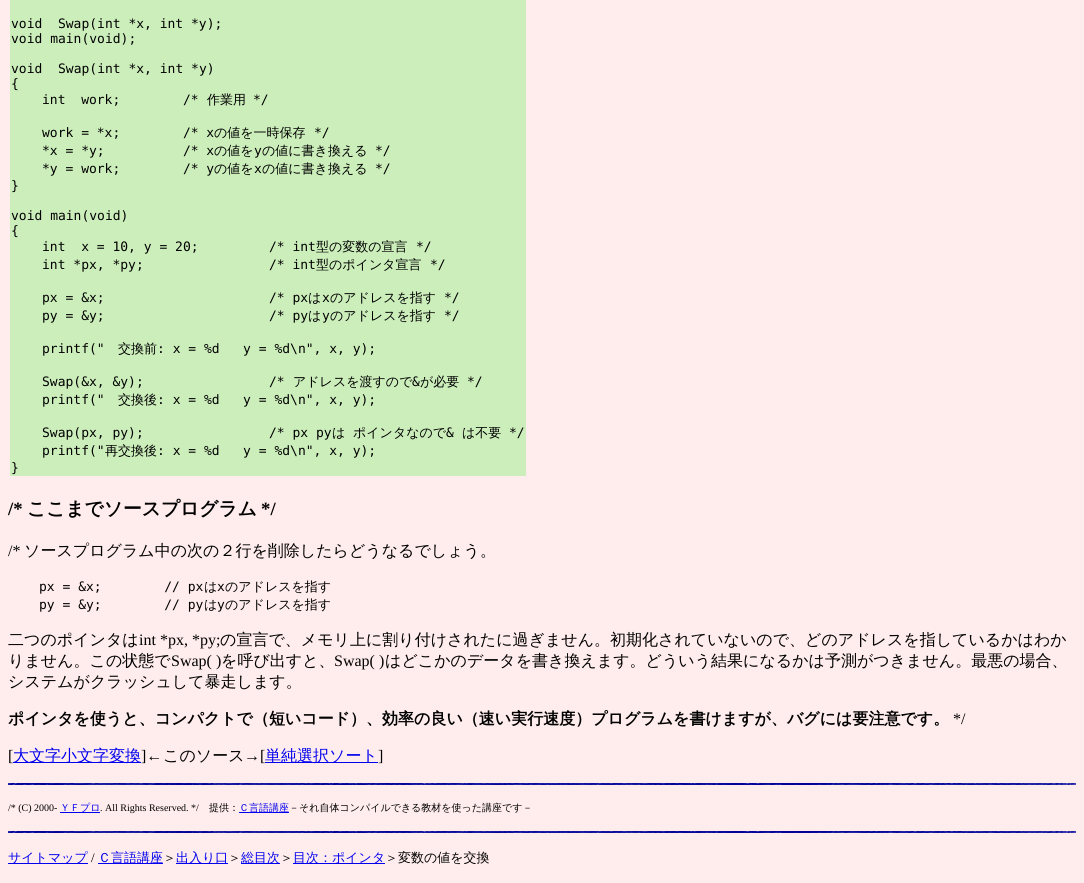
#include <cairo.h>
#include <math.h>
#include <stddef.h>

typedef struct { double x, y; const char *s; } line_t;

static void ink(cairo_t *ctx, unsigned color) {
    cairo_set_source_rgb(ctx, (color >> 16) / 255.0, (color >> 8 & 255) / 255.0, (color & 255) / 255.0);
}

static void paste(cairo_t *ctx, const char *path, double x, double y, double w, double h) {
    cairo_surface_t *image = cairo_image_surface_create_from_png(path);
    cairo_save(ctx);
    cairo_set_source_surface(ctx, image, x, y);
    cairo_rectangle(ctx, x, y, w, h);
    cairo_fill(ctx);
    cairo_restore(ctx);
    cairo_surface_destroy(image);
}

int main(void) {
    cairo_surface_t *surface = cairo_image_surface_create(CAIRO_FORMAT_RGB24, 1084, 883);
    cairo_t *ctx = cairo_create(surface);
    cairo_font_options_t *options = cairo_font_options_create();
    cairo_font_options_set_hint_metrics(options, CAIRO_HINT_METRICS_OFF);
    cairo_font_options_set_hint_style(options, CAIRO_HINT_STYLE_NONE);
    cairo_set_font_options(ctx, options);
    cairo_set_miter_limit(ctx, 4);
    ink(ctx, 0xFFECEC);
    cairo_paint(ctx);
    ink(ctx, 0xCCEEBB);
    cairo_rectangle(ctx, 10, 0, 516, 476);
    cairo_fill(ctx);
    cairo_select_font_face(ctx, "DejaVu Sans Mono", CAIRO_FONT_SLANT_NORMAL, CAIRO_FONT_WEIGHT_NORMAL);
    cairo_set_font_size(ctx, 13);
    ink(ctx, 0x000000);
    {
        static const line_t items[] = {
            {11, 28, "void  Swap(int *x, int *y);"},
            {11, 43, "void main(void);"},
            {11, 73, "void"},
            {58, 73, "Swap(int *x, int *y)"},
            {11, 88, "{"},
            {42, 104, "int  work;        /*"},
        };
        for (size_t i = 0; i < sizeof items / sizeof *items; i++) {
            cairo_move_to(ctx, items[i].x, items[i].y);
            cairo_show_text(ctx, items[i].s);
        }
    }
    cairo_select_font_face(ctx, "WenQuanYi Zen Hei Medium", CAIRO_FONT_SLANT_NORMAL, CAIRO_FONT_WEIGHT_NORMAL);
    cairo_move_to(ctx, 207, 104);
    cairo_show_text(ctx, "作業用");
    cairo_select_font_face(ctx, "DejaVu Sans Mono", CAIRO_FONT_SLANT_NORMAL, CAIRO_FONT_WEIGHT_NORMAL);
    cairo_move_to(ctx, 253, 104);
    cairo_show_text(ctx, "*/");
    cairo_move_to(ctx, 42, 137);
    cairo_show_text(ctx, "work = *x;        /* x");
    cairo_select_font_face(ctx, "WenQuanYi Zen Hei Medium", CAIRO_FONT_SLANT_NORMAL, CAIRO_FONT_WEIGHT_NORMAL);
    cairo_move_to(ctx, 214, 137);
    cairo_show_text(ctx, "の値を一時保存");
    cairo_select_font_face(ctx, "DejaVu Sans Mono", CAIRO_FONT_SLANT_NORMAL, CAIRO_FONT_WEIGHT_NORMAL);
    cairo_move_to(ctx, 314, 137);
    cairo_show_text(ctx, "*/");
    cairo_move_to(ctx, 42, 155);
    cairo_show_text(ctx, "*x = *y;          /* x");
    cairo_select_font_face(ctx, "WenQuanYi Zen Hei Medium", CAIRO_FONT_SLANT_NORMAL, CAIRO_FONT_WEIGHT_NORMAL);
    cairo_move_to(ctx, 214, 155);
    cairo_show_text(ctx, "の値を");
    cairo_select_font_face(ctx, "DejaVu Sans Mono", CAIRO_FONT_SLANT_NORMAL, CAIRO_FONT_WEIGHT_NORMAL);
    cairo_move_to(ctx, 254, 155);
    cairo_show_text(ctx, "y");
    cairo_select_font_face(ctx, "WenQuanYi Zen Hei Medium", CAIRO_FONT_SLANT_NORMAL, CAIRO_FONT_WEIGHT_NORMAL);
    cairo_move_to(ctx, 262, 155);
    cairo_show_text(ctx, "の値に書き換える");
    cairo_select_font_face(ctx, "DejaVu Sans Mono", CAIRO_FONT_SLANT_NORMAL, CAIRO_FONT_WEIGHT_NORMAL);
    cairo_move_to(ctx, 375, 155);
    cairo_show_text(ctx, "*/");
    cairo_move_to(ctx, 42, 173);
    cairo_show_text(ctx, "*y = work;        /* y");
    cairo_select_font_face(ctx, "WenQuanYi Zen Hei Medium", CAIRO_FONT_SLANT_NORMAL, CAIRO_FONT_WEIGHT_NORMAL);
    cairo_move_to(ctx, 214, 173);
    cairo_show_text(ctx, "の値を");
    cairo_select_font_face(ctx, "DejaVu Sans Mono", CAIRO_FONT_SLANT_NORMAL, CAIRO_FONT_WEIGHT_NORMAL);
    cairo_move_to(ctx, 254, 173);
    cairo_show_text(ctx, "x");
    cairo_select_font_face(ctx, "WenQuanYi Zen Hei Medium", CAIRO_FONT_SLANT_NORMAL, CAIRO_FONT_WEIGHT_NORMAL);
    cairo_move_to(ctx, 262, 173);
    cairo_show_text(ctx, "の値に書き換える");
    cairo_select_font_face(ctx, "DejaVu Sans Mono", CAIRO_FONT_SLANT_NORMAL, CAIRO_FONT_WEIGHT_NORMAL);
    {
        static const line_t items[] = {
            {375, 173, "*/"},
            {11, 190, "}"},
            {11, 220, "void main(void)"},
            {11, 235, "{"},
            {42, 251, "int  x = 10, y = 20;         /* int"},
        };
        for (size_t i = 0; i < sizeof items / sizeof *items; i++) {
            cairo_move_to(ctx, items[i].x, items[i].y);
            cairo_show_text(ctx, items[i].s);
        }
    }
    cairo_select_font_face(ctx, "WenQuanYi Zen Hei Medium", CAIRO_FONT_SLANT_NORMAL, CAIRO_FONT_WEIGHT_NORMAL);
    cairo_move_to(ctx, 316, 251);
    cairo_show_text(ctx, "型の変数の宣言");
    cairo_select_font_face(ctx, "DejaVu Sans Mono", CAIRO_FONT_SLANT_NORMAL, CAIRO_FONT_WEIGHT_NORMAL);
    cairo_move_to(ctx, 416, 251);
    cairo_show_text(ctx, "*/");
    cairo_move_to(ctx, 42, 269);
    cairo_show_text(ctx, "int *px, *py;                /* int");
    cairo_select_font_face(ctx, "WenQuanYi Zen Hei Medium", CAIRO_FONT_SLANT_NORMAL, CAIRO_FONT_WEIGHT_NORMAL);
    cairo_move_to(ctx, 316, 269);
    cairo_show_text(ctx, "型のポインタ宣言");
    cairo_select_font_face(ctx, "DejaVu Sans Mono", CAIRO_FONT_SLANT_NORMAL, CAIRO_FONT_WEIGHT_NORMAL);
    cairo_move_to(ctx, 430, 269);
    cairo_show_text(ctx, "*/");
    cairo_move_to(ctx, 42, 302);
    cairo_show_text(ctx, "px = &x;                     /* px");
    cairo_select_font_face(ctx, "WenQuanYi Zen Hei Medium", CAIRO_FONT_SLANT_NORMAL, CAIRO_FONT_WEIGHT_NORMAL);
    cairo_move_to(ctx, 308, 302);
    cairo_show_text(ctx, "は");
    cairo_select_font_face(ctx, "DejaVu Sans Mono", CAIRO_FONT_SLANT_NORMAL, CAIRO_FONT_WEIGHT_NORMAL);
    cairo_move_to(ctx, 322, 302);
    cairo_show_text(ctx, "x");
    cairo_select_font_face(ctx, "WenQuanYi Zen Hei Medium", CAIRO_FONT_SLANT_NORMAL, CAIRO_FONT_WEIGHT_NORMAL);
    cairo_move_to(ctx, 330, 302);
    cairo_show_text(ctx, "のアドレスを指す");
    cairo_select_font_face(ctx, "DejaVu Sans Mono", CAIRO_FONT_SLANT_NORMAL, CAIRO_FONT_WEIGHT_NORMAL);
    cairo_move_to(ctx, 444, 302);
    cairo_show_text(ctx, "*/");
    cairo_move_to(ctx, 42, 320);
    cairo_show_text(ctx, "py = &y;                     /* py");
    cairo_select_font_face(ctx, "WenQuanYi Zen Hei Medium", CAIRO_FONT_SLANT_NORMAL, CAIRO_FONT_WEIGHT_NORMAL);
    cairo_move_to(ctx, 308, 320);
    cairo_show_text(ctx, "は");
    cairo_select_font_face(ctx, "DejaVu Sans Mono", CAIRO_FONT_SLANT_NORMAL, CAIRO_FONT_WEIGHT_NORMAL);
    cairo_move_to(ctx, 322, 320);
    cairo_show_text(ctx, "y");
    cairo_select_font_face(ctx, "WenQuanYi Zen Hei Medium", CAIRO_FONT_SLANT_NORMAL, CAIRO_FONT_WEIGHT_NORMAL);
    cairo_move_to(ctx, 330, 320);
    cairo_show_text(ctx, "のアドレスを指す");
    cairo_select_font_face(ctx, "DejaVu Sans Mono", CAIRO_FONT_SLANT_NORMAL, CAIRO_FONT_WEIGHT_NORMAL);
    cairo_move_to(ctx, 444, 320);
    cairo_show_text(ctx, "*/");
    cairo_move_to(ctx, 42, 353);
    cairo_show_text(ctx, "printf(\"");
    cairo_select_font_face(ctx, "WenQuanYi Zen Hei Medium", CAIRO_FONT_SLANT_NORMAL, CAIRO_FONT_WEIGHT_NORMAL);
    cairo_move_to(ctx, 118, 353);
    cairo_show_text(ctx, "交換前");
    cairo_select_font_face(ctx, "DejaVu Sans Mono", CAIRO_FONT_SLANT_NORMAL, CAIRO_FONT_WEIGHT_NORMAL);
    cairo_move_to(ctx, 157, 353);
    cairo_show_text(ctx, ": x = %d   y = %d\\n\", x, y);");
    cairo_move_to(ctx, 42, 386);
    cairo_show_text(ctx, "Swap(&x, &y);                /*");
    cairo_select_font_face(ctx, "WenQuanYi Zen Hei Medium", CAIRO_FONT_SLANT_NORMAL, CAIRO_FONT_WEIGHT_NORMAL);
    cairo_move_to(ctx, 293, 386);
    cairo_show_text(ctx, "アドレスを渡すので");
    cairo_select_font_face(ctx, "DejaVu Sans Mono", CAIRO_FONT_SLANT_NORMAL, CAIRO_FONT_WEIGHT_NORMAL);
    cairo_move_to(ctx, 412, 386);
    cairo_show_text(ctx, "&");
    cairo_select_font_face(ctx, "WenQuanYi Zen Hei Medium", CAIRO_FONT_SLANT_NORMAL, CAIRO_FONT_WEIGHT_NORMAL);
    cairo_move_to(ctx, 420, 386);
    cairo_show_text(ctx, "が必要");
    cairo_select_font_face(ctx, "DejaVu Sans Mono", CAIRO_FONT_SLANT_NORMAL, CAIRO_FONT_WEIGHT_NORMAL);
    cairo_move_to(ctx, 467, 386);
    cairo_show_text(ctx, "*/");
    cairo_move_to(ctx, 42, 404);
    cairo_show_text(ctx, "printf(\"");
    cairo_select_font_face(ctx, "WenQuanYi Zen Hei Medium", CAIRO_FONT_SLANT_NORMAL, CAIRO_FONT_WEIGHT_NORMAL);
    cairo_move_to(ctx, 118, 404);
    cairo_show_text(ctx, "交換後");
    cairo_select_font_face(ctx, "DejaVu Sans Mono", CAIRO_FONT_SLANT_NORMAL, CAIRO_FONT_WEIGHT_NORMAL);
    cairo_move_to(ctx, 157, 404);
    cairo_show_text(ctx, ": x = %d   y = %d\\n\", x, y);");
    cairo_move_to(ctx, 42, 437);
    cairo_show_text(ctx, "Swap(px, py);                /* px py");
    cairo_select_font_face(ctx, "WenQuanYi Zen Hei Medium", CAIRO_FONT_SLANT_NORMAL, CAIRO_FONT_WEIGHT_NORMAL);
    cairo_move_to(ctx, 332, 437);
    cairo_show_text(ctx, "は");
    cairo_move_to(ctx, 353, 437);
    cairo_show_text(ctx, "ポインタなので");
    cairo_select_font_face(ctx, "DejaVu Sans Mono", CAIRO_FONT_SLANT_NORMAL, CAIRO_FONT_WEIGHT_NORMAL);
    cairo_move_to(ctx, 446, 437);
    cairo_show_text(ctx, "&");
    cairo_select_font_face(ctx, "WenQuanYi Zen Hei Medium", CAIRO_FONT_SLANT_NORMAL, CAIRO_FONT_WEIGHT_NORMAL);
    cairo_move_to(ctx, 462, 437);
    cairo_show_text(ctx, "は不要");
    cairo_select_font_face(ctx, "DejaVu Sans Mono", CAIRO_FONT_SLANT_NORMAL, CAIRO_FONT_WEIGHT_NORMAL);
    cairo_move_to(ctx, 509, 437);
    cairo_show_text(ctx, "*/");
    cairo_move_to(ctx, 42, 455);
    cairo_show_text(ctx, "printf(\"");
    cairo_select_font_face(ctx, "WenQuanYi Zen Hei Medium", CAIRO_FONT_SLANT_NORMAL, CAIRO_FONT_WEIGHT_NORMAL);
    cairo_move_to(ctx, 105, 455);
    cairo_show_text(ctx, "再交換後");
    cairo_select_font_face(ctx, "DejaVu Sans Mono", CAIRO_FONT_SLANT_NORMAL, CAIRO_FONT_WEIGHT_NORMAL);
    cairo_move_to(ctx, 157, 455);
    cairo_show_text(ctx, ": x = %d   y = %d\\n\", x, y);");
    cairo_move_to(ctx, 11, 472);
    cairo_show_text(ctx, "}");
    cairo_select_font_face(ctx, "Liberation Serif", CAIRO_FONT_SLANT_NORMAL, CAIRO_FONT_WEIGHT_BOLD);
    cairo_set_font_size(ctx, 18.75);
    cairo_move_to(ctx, 8, 515);
    cairo_show_text(ctx, "/*");
    cairo_select_font_face(ctx, "WenQuanYi Zen Hei", CAIRO_FONT_SLANT_NORMAL, CAIRO_FONT_WEIGHT_BOLD);
    cairo_move_to(ctx, 27, 515);
    cairo_show_text(ctx, "ここまでソースプログラム");
    cairo_select_font_face(ctx, "Liberation Serif", CAIRO_FONT_SLANT_NORMAL, CAIRO_FONT_WEIGHT_BOLD);
    cairo_move_to(ctx, 261, 515);
    cairo_show_text(ctx, "*/");
    cairo_select_font_face(ctx, "Liberation Serif", CAIRO_FONT_SLANT_NORMAL, CAIRO_FONT_WEIGHT_NORMAL);
    cairo_set_font_size(ctx, 16);
    cairo_move_to(ctx, 8, 556);
    cairo_show_text(ctx, "/*");
    cairo_select_font_face(ctx, "WenQuanYi Zen Hei Medium", CAIRO_FONT_SLANT_NORMAL, CAIRO_FONT_WEIGHT_NORMAL);
    cairo_move_to(ctx, 24, 556);
    cairo_show_text(ctx, "ソースプログラム中の次の２行を削除したらどうなるでしょう。");
    cairo_select_font_face(ctx, "DejaVu Sans Mono", CAIRO_FONT_SLANT_NORMAL, CAIRO_FONT_WEIGHT_NORMAL);
    cairo_set_font_size(ctx, 13);
    cairo_move_to(ctx, 39, 591);
    cairo_show_text(ctx, "px = &x;        // px");
    cairo_select_font_face(ctx, "WenQuanYi Zen Hei Medium", CAIRO_FONT_SLANT_NORMAL, CAIRO_FONT_WEIGHT_NORMAL);
    cairo_move_to(ctx, 204, 591);
    cairo_show_text(ctx, "は");
    cairo_select_font_face(ctx, "DejaVu Sans Mono", CAIRO_FONT_SLANT_NORMAL, CAIRO_FONT_WEIGHT_NORMAL);
    cairo_move_to(ctx, 217, 591);
    cairo_show_text(ctx, "x");
    cairo_select_font_face(ctx, "WenQuanYi Zen Hei Medium", CAIRO_FONT_SLANT_NORMAL, CAIRO_FONT_WEIGHT_NORMAL);
    cairo_move_to(ctx, 225, 591);
    cairo_show_text(ctx, "のアドレスを指す");
    cairo_select_font_face(ctx, "DejaVu Sans Mono", CAIRO_FONT_SLANT_NORMAL, CAIRO_FONT_WEIGHT_NORMAL);
    cairo_move_to(ctx, 39, 609);
    cairo_show_text(ctx, "py = &y;        // py");
    cairo_select_font_face(ctx, "WenQuanYi Zen Hei Medium", CAIRO_FONT_SLANT_NORMAL, CAIRO_FONT_WEIGHT_NORMAL);
    cairo_move_to(ctx, 204, 609);
    cairo_show_text(ctx, "は");
    cairo_select_font_face(ctx, "DejaVu Sans Mono", CAIRO_FONT_SLANT_NORMAL, CAIRO_FONT_WEIGHT_NORMAL);
    cairo_move_to(ctx, 217, 609);
    cairo_show_text(ctx, "y");
    cairo_select_font_face(ctx, "WenQuanYi Zen Hei Medium", CAIRO_FONT_SLANT_NORMAL, CAIRO_FONT_WEIGHT_NORMAL);
    cairo_move_to(ctx, 225, 609);
    cairo_show_text(ctx, "のアドレスを指す");
    cairo_set_font_size(ctx, 16);
    cairo_move_to(ctx, 8, 645);
    cairo_show_text(ctx, "二つのポインタは");
    cairo_select_font_face(ctx, "Liberation Serif", CAIRO_FONT_SLANT_NORMAL, CAIRO_FONT_WEIGHT_NORMAL);
    cairo_move_to(ctx, 139, 645);
    cairo_show_text(ctx, "int *px, *py;");
    cairo_select_font_face(ctx, "WenQuanYi Zen Hei Medium", CAIRO_FONT_SLANT_NORMAL, CAIRO_FONT_WEIGHT_NORMAL);
    cairo_move_to(ctx, 220, 645);
    cairo_show_text(ctx, "の宣言で、メモリ上に割り付けされたに過ぎません。初期化されていないので、どのアドレスを指しているかはわか");
    cairo_move_to(ctx, 8, 666);
    cairo_show_text(ctx, "りません。この状態で");
    cairo_select_font_face(ctx, "Liberation Serif", CAIRO_FONT_SLANT_NORMAL, CAIRO_FONT_WEIGHT_NORMAL);
    cairo_move_to(ctx, 171, 666);
    cairo_show_text(ctx, "Swap( )");
    cairo_select_font_face(ctx, "WenQuanYi Zen Hei Medium", CAIRO_FONT_SLANT_NORMAL, CAIRO_FONT_WEIGHT_NORMAL);
    cairo_move_to(ctx, 221, 666);
    cairo_show_text(ctx, "を呼び出すと、");
    cairo_select_font_face(ctx, "Liberation Serif", CAIRO_FONT_SLANT_NORMAL, CAIRO_FONT_WEIGHT_NORMAL);
    cairo_move_to(ctx, 334, 666);
    cairo_show_text(ctx, "Swap( )");
    cairo_select_font_face(ctx, "WenQuanYi Zen Hei Medium", CAIRO_FONT_SLANT_NORMAL, CAIRO_FONT_WEIGHT_NORMAL);
    cairo_move_to(ctx, 385, 666);
    cairo_show_text(ctx, "はどこかのデータを書き換えます。どういう結果になるかは予測がつきません。最悪の場合、");
    cairo_move_to(ctx, 8, 687);
    cairo_show_text(ctx, "システムがクラッシュして暴走します。");
    cairo_select_font_face(ctx, "WenQuanYi Zen Hei", CAIRO_FONT_SLANT_NORMAL, CAIRO_FONT_WEIGHT_BOLD);
    cairo_move_to(ctx, 8, 724);
    cairo_show_text(ctx, "ポインタを使うと、コンパクトで（短いコード）、効率の良い（速い実行速度）プログラムを書けますが、バグには要注意です。");
    cairo_select_font_face(ctx, "Liberation Serif", CAIRO_FONT_SLANT_NORMAL, CAIRO_FONT_WEIGHT_NORMAL);
    cairo_move_to(ctx, 953, 724);
    cairo_show_text(ctx, "*/");
    cairo_move_to(ctx, 8, 761);
    cairo_show_text(ctx, "[");
    ink(ctx, 0x0000EE);
    cairo_rectangle(ctx, 13, 762, 128, 1);
    cairo_fill(ctx);
    cairo_select_font_face(ctx, "WenQuanYi Zen Hei Medium", CAIRO_FONT_SLANT_NORMAL, CAIRO_FONT_WEIGHT_NORMAL);
    cairo_move_to(ctx, 13, 761);
    cairo_show_text(ctx, "大文字小文字変換");
    cairo_select_font_face(ctx, "Liberation Serif", CAIRO_FONT_SLANT_NORMAL, CAIRO_FONT_WEIGHT_NORMAL);
    ink(ctx, 0x000000);
    cairo_move_to(ctx, 141, 761);
    cairo_show_text(ctx, "]←");
    cairo_select_font_face(ctx, "WenQuanYi Zen Hei Medium", CAIRO_FONT_SLANT_NORMAL, CAIRO_FONT_WEIGHT_NORMAL);
    cairo_move_to(ctx, 163, 761);
    cairo_show_text(ctx, "このソース");
    cairo_select_font_face(ctx, "Liberation Serif", CAIRO_FONT_SLANT_NORMAL, CAIRO_FONT_WEIGHT_NORMAL);
    cairo_move_to(ctx, 244, 761);
    cairo_show_text(ctx, "→[");
    ink(ctx, 0x0000EE);
    cairo_rectangle(ctx, 265, 762, 113, 1);
    cairo_fill(ctx);
    cairo_select_font_face(ctx, "WenQuanYi Zen Hei Medium", CAIRO_FONT_SLANT_NORMAL, CAIRO_FONT_WEIGHT_NORMAL);
    cairo_move_to(ctx, 265, 761);
    cairo_show_text(ctx, "単純選択ソート");
    cairo_select_font_face(ctx, "Liberation Serif", CAIRO_FONT_SLANT_NORMAL, CAIRO_FONT_WEIGHT_NORMAL);
    ink(ctx, 0x000000);
    cairo_move_to(ctx, 378, 761);
    cairo_show_text(ctx, "]");
    paste(ctx, "media/1.png", 8, 783, 1068, 2);
    cairo_set_font_size(ctx, 10);
    cairo_move_to(ctx, 8, 811);
    cairo_show_text(ctx, "/* (C) 2000-");
    ink(ctx, 0x0000EE);
    cairo_rectangle(ctx, 60, 812, 40, 1);
    cairo_fill(ctx);
    cairo_select_font_face(ctx, "WenQuanYi Zen Hei Medium", CAIRO_FONT_SLANT_NORMAL, CAIRO_FONT_WEIGHT_NORMAL);
    cairo_move_to(ctx, 60, 811);
    cairo_show_text(ctx, "ＹＦプロ");
    cairo_select_font_face(ctx, "Liberation Serif", CAIRO_FONT_SLANT_NORMAL, CAIRO_FONT_WEIGHT_NORMAL);
    ink(ctx, 0x000000);
    cairo_move_to(ctx, 100, 811);
    cairo_show_text(ctx, ". All Rights Reserved. */");
    cairo_select_font_face(ctx, "WenQuanYi Zen Hei Medium", CAIRO_FONT_SLANT_NORMAL, CAIRO_FONT_WEIGHT_NORMAL);
    cairo_move_to(ctx, 209, 811);
    cairo_show_text(ctx, "提供：");
    ink(ctx, 0x0000EE);
    cairo_rectangle(ctx, 239, 812, 50, 1);
    cairo_fill(ctx);
    cairo_move_to(ctx, 239, 811);
    cairo_show_text(ctx, "Ｃ言語講座");
    ink(ctx, 0x000000);
    cairo_move_to(ctx, 289, 811);
    cairo_show_text(ctx, "－それ自体コンパイルできる教材を使った講座です－");
    paste(ctx, "media/1.png", 8, 831, 1068, 2);
    ink(ctx, 0x0000EE);
    cairo_rectangle(ctx, 8, 863, 80, 1);
    cairo_fill(ctx);
    cairo_set_font_size(ctx, 13);
    cairo_move_to(ctx, 8, 862);
    cairo_show_text(ctx, "サイトマップ");
    cairo_select_font_face(ctx, "Liberation Serif", CAIRO_FONT_SLANT_NORMAL, CAIRO_FONT_WEIGHT_NORMAL);
    ink(ctx, 0x000000);
    cairo_move_to(ctx, 91, 862);
    cairo_show_text(ctx, "/");
    ink(ctx, 0x0000EE);
    cairo_rectangle(ctx, 98, 863, 65, 1);
    cairo_fill(ctx);
    cairo_select_font_face(ctx, "WenQuanYi Zen Hei Medium", CAIRO_FONT_SLANT_NORMAL, CAIRO_FONT_WEIGHT_NORMAL);
    cairo_move_to(ctx, 98, 862);
    cairo_show_text(ctx, "Ｃ言語講座");
    ink(ctx, 0x000000);
    cairo_move_to(ctx, 163, 862);
    cairo_show_text(ctx, "＞");
    ink(ctx, 0x0000EE);
    cairo_rectangle(ctx, 176, 863, 52, 1);
    cairo_fill(ctx);
    cairo_move_to(ctx, 176, 862);
    cairo_show_text(ctx, "出入り口");
    ink(ctx, 0x000000);
    cairo_move_to(ctx, 228, 862);
    cairo_show_text(ctx, "＞");
    ink(ctx, 0x0000EE);
    cairo_rectangle(ctx, 241, 863, 39, 1);
    cairo_fill(ctx);
    cairo_move_to(ctx, 241, 862);
    cairo_show_text(ctx, "総目次");
    ink(ctx, 0x000000);
    cairo_move_to(ctx, 280, 862);
    cairo_show_text(ctx, "＞");
    ink(ctx, 0x0000EE);
    cairo_rectangle(ctx, 293, 863, 92, 1);
    cairo_fill(ctx);
    cairo_move_to(ctx, 293, 862);
    cairo_show_text(ctx, "目次：ポインタ");
    ink(ctx, 0x000000);
    cairo_move_to(ctx, 385, 862);
    cairo_show_text(ctx, "＞変数の値を交換");
    cairo_surface_write_to_png(surface, "image.png");
    cairo_font_options_destroy(options);
    cairo_destroy(ctx);
    cairo_surface_destroy(surface);
    return 0;
}
